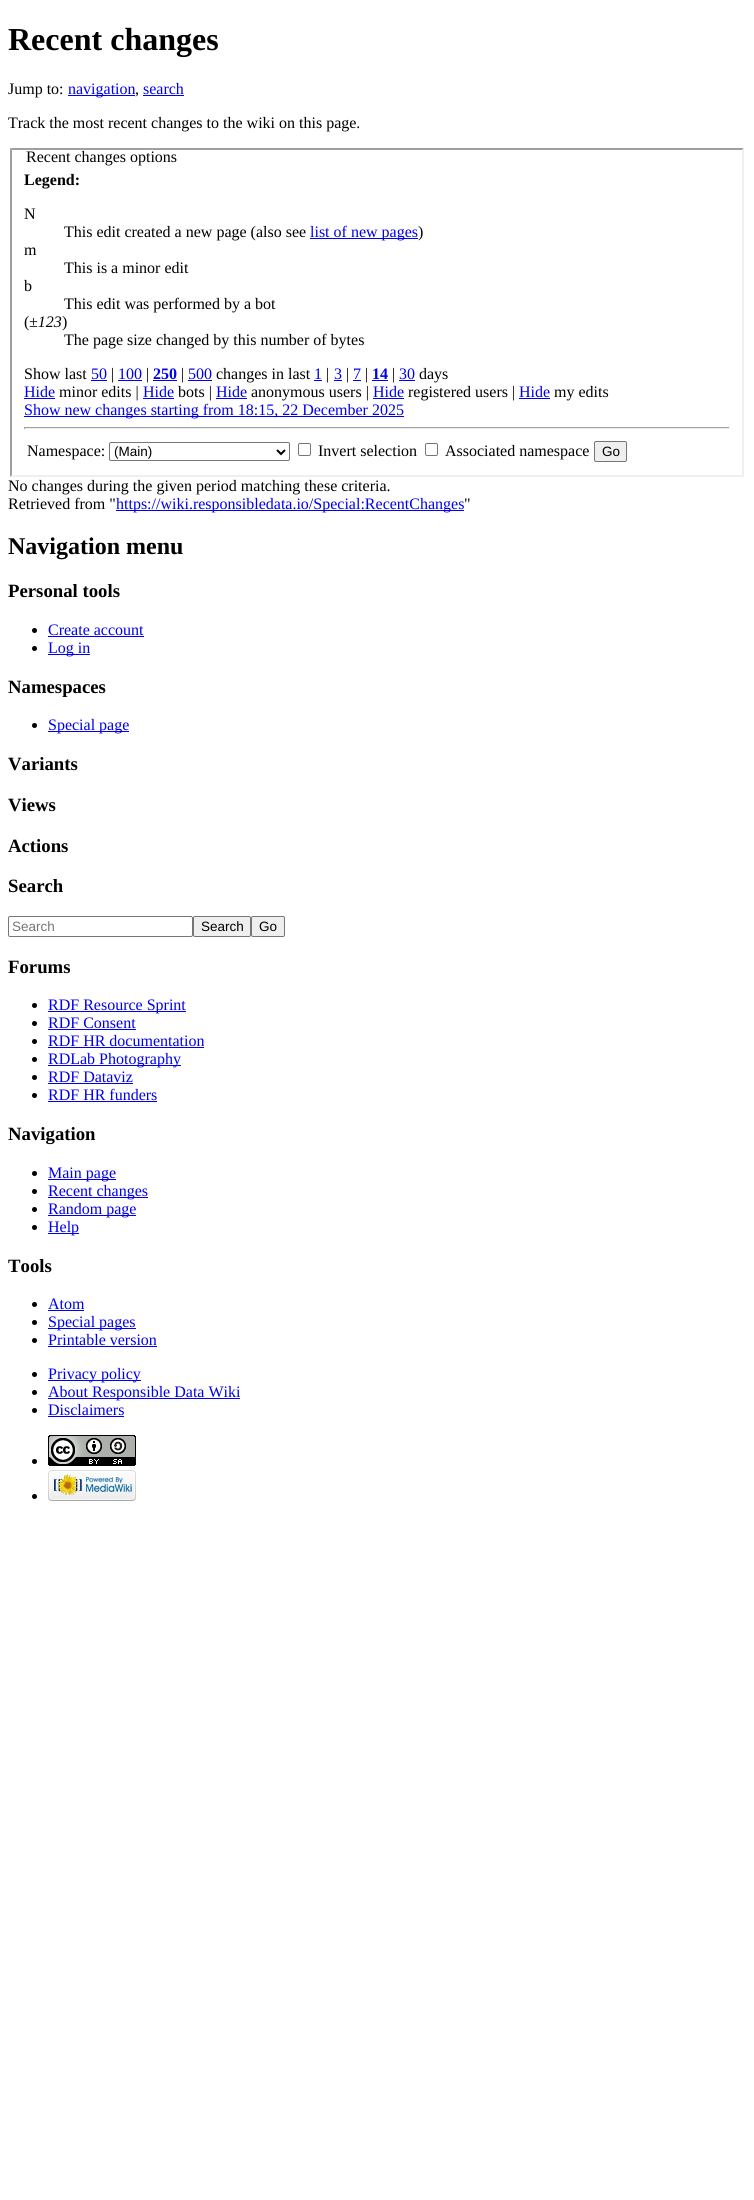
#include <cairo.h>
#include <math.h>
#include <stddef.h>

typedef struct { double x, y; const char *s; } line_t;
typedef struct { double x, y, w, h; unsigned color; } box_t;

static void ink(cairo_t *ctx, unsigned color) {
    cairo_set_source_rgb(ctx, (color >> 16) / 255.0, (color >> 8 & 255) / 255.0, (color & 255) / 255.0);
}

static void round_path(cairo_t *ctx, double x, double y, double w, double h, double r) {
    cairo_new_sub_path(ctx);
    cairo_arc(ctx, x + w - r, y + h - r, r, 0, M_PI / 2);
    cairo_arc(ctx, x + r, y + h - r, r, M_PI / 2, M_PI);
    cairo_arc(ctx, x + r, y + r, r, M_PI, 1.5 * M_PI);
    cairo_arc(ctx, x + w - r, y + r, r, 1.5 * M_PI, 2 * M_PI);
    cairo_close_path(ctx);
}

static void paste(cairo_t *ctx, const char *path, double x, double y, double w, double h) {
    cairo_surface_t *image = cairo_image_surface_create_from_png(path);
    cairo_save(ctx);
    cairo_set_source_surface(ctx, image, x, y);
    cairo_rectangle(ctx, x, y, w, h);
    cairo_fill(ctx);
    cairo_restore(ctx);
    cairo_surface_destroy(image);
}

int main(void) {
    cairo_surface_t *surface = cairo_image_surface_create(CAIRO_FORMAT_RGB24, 754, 2200);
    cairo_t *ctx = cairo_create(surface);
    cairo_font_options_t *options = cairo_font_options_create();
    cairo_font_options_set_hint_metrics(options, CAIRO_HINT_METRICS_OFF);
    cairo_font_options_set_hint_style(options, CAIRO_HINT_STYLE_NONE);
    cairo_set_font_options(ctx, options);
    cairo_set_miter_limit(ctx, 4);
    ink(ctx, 0xFFFFFF);
    cairo_paint(ctx);
    cairo_select_font_face(ctx, "Liberation Serif", CAIRO_FONT_SLANT_NORMAL, CAIRO_FONT_WEIGHT_BOLD);
    cairo_set_font_size(ctx, 32);
    ink(ctx, 0x000000);
    cairo_move_to(ctx, 8, 50);
    cairo_show_text(ctx, "Recent changes");
    cairo_select_font_face(ctx, "Liberation Serif", CAIRO_FONT_SLANT_NORMAL, CAIRO_FONT_WEIGHT_NORMAL);
    cairo_set_font_size(ctx, 16);
    cairo_move_to(ctx, 8, 94);
    cairo_show_text(ctx, "Jump to:");
    ink(ctx, 0x0000EE);
    cairo_rectangle(ctx, 68, 95, 67, 1);
    cairo_fill(ctx);
    cairo_move_to(ctx, 68, 94);
    cairo_show_text(ctx, "navigation");
    ink(ctx, 0x000000);
    cairo_move_to(ctx, 135, 94);
    cairo_show_text(ctx, ",");
    ink(ctx, 0x0000EE);
    cairo_move_to(ctx, 143, 94);
    cairo_show_text(ctx, "search");
    cairo_rectangle(ctx, 143, 95, 41, 1);
    cairo_fill(ctx);
    ink(ctx, 0x000000);
    cairo_move_to(ctx, 8, 128);
    cairo_show_text(ctx, "Track the most recent changes to the wiki on this page.");
    ink(ctx, 0x9F9F9F);
    cairo_new_path(ctx);
    cairo_move_to(ctx, 10, 148);
    cairo_line_to(ctx, 744, 148);
    cairo_line_to(ctx, 742, 150);
    cairo_line_to(ctx, 12, 150);
    cairo_close_path(ctx);
    cairo_fill(ctx);
    ink(ctx, 0xEFEFEF);
    cairo_new_path(ctx);
    cairo_move_to(ctx, 744, 148);
    cairo_line_to(ctx, 744, 477);
    cairo_line_to(ctx, 742, 475);
    cairo_line_to(ctx, 742, 150);
    cairo_close_path(ctx);
    cairo_fill(ctx);
    cairo_new_path(ctx);
    cairo_move_to(ctx, 744, 477);
    cairo_line_to(ctx, 10, 477);
    cairo_line_to(ctx, 12, 475);
    cairo_line_to(ctx, 742, 475);
    cairo_close_path(ctx);
    cairo_fill(ctx);
    ink(ctx, 0x9F9F9F);
    cairo_new_path(ctx);
    cairo_move_to(ctx, 10, 477);
    cairo_line_to(ctx, 10, 148);
    cairo_line_to(ctx, 12, 150);
    cairo_line_to(ctx, 12, 475);
    cairo_close_path(ctx);
    cairo_fill(ctx);
    ink(ctx, 0x000000);
    cairo_move_to(ctx, 26, 162);
    cairo_show_text(ctx, "Recent changes options");
    cairo_select_font_face(ctx, "Liberation Serif", CAIRO_FONT_SLANT_NORMAL, CAIRO_FONT_WEIGHT_BOLD);
    cairo_move_to(ctx, 24, 185);
    cairo_show_text(ctx, "Legend:");
    cairo_select_font_face(ctx, "Liberation Serif", CAIRO_FONT_SLANT_NORMAL, CAIRO_FONT_WEIGHT_NORMAL);
    cairo_move_to(ctx, 24, 219);
    cairo_show_text(ctx, "N");
    cairo_move_to(ctx, 64, 237);
    cairo_show_text(ctx, "This edit created a new page (also see");
    ink(ctx, 0x0000EE);
    cairo_rectangle(ctx, 310, 238, 108, 1);
    cairo_fill(ctx);
    cairo_move_to(ctx, 310, 237);
    cairo_show_text(ctx, "list of new pages");
    ink(ctx, 0x000000);
    {
        static const line_t items[] = {
            {418, 237, ")"},
            {24, 255, "m"},
            {64, 273, "This is a minor edit"},
            {24, 291, "b"},
            {64, 309, "This edit was performed by a bot"},
            {24, 327, "("},
        };
        for (size_t i = 0; i < sizeof items / sizeof *items; i++) {
            cairo_move_to(ctx, items[i].x, items[i].y);
            cairo_show_text(ctx, items[i].s);
        }
    }
    cairo_select_font_face(ctx, "Liberation Serif", CAIRO_FONT_SLANT_ITALIC, CAIRO_FONT_WEIGHT_NORMAL);
    cairo_move_to(ctx, 29, 327);
    cairo_show_text(ctx, "±123");
    cairo_select_font_face(ctx, "Liberation Serif", CAIRO_FONT_SLANT_NORMAL, CAIRO_FONT_WEIGHT_NORMAL);
    {
        static const line_t items[] = {
            {62, 327, ")"},
            {64, 345, "The page size changed by this number of bytes"},
            {24, 379, "Show last"},
        };
        for (size_t i = 0; i < sizeof items / sizeof *items; i++) {
            cairo_move_to(ctx, items[i].x, items[i].y);
            cairo_show_text(ctx, items[i].s);
        }
    }
    ink(ctx, 0x0000EE);
    cairo_move_to(ctx, 91, 379);
    cairo_show_text(ctx, "50");
    cairo_rectangle(ctx, 91, 380, 16, 1);
    cairo_fill(ctx);
    ink(ctx, 0x000000);
    cairo_move_to(ctx, 111, 379);
    cairo_show_text(ctx, "|");
    ink(ctx, 0x0000EE);
    cairo_move_to(ctx, 118, 379);
    cairo_show_text(ctx, "100");
    cairo_rectangle(ctx, 118, 380, 24, 1);
    cairo_fill(ctx);
    ink(ctx, 0x000000);
    cairo_move_to(ctx, 146, 379);
    cairo_show_text(ctx, "|");
    cairo_select_font_face(ctx, "Liberation Serif", CAIRO_FONT_SLANT_NORMAL, CAIRO_FONT_WEIGHT_BOLD);
    ink(ctx, 0x0000EE);
    cairo_move_to(ctx, 153, 379);
    cairo_show_text(ctx, "250");
    cairo_rectangle(ctx, 153, 380, 24, 1);
    cairo_fill(ctx);
    cairo_select_font_face(ctx, "Liberation Serif", CAIRO_FONT_SLANT_NORMAL, CAIRO_FONT_WEIGHT_NORMAL);
    ink(ctx, 0x000000);
    cairo_move_to(ctx, 181, 379);
    cairo_show_text(ctx, "|");
    ink(ctx, 0x0000EE);
    cairo_move_to(ctx, 188, 379);
    cairo_show_text(ctx, "500");
    cairo_rectangle(ctx, 188, 380, 24, 1);
    cairo_fill(ctx);
    ink(ctx, 0x000000);
    cairo_move_to(ctx, 216, 379);
    cairo_show_text(ctx, "changes in last");
    ink(ctx, 0x0000EE);
    cairo_move_to(ctx, 314, 379);
    cairo_show_text(ctx, "1");
    cairo_rectangle(ctx, 314, 380, 8, 1);
    cairo_fill(ctx);
    ink(ctx, 0x000000);
    cairo_move_to(ctx, 326, 379);
    cairo_show_text(ctx, "|");
    ink(ctx, 0x0000EE);
    cairo_move_to(ctx, 334, 379);
    cairo_show_text(ctx, "3");
    cairo_rectangle(ctx, 334, 380, 8, 1);
    cairo_fill(ctx);
    ink(ctx, 0x000000);
    cairo_move_to(ctx, 346, 379);
    cairo_show_text(ctx, "|");
    ink(ctx, 0x0000EE);
    cairo_move_to(ctx, 353, 379);
    cairo_show_text(ctx, "7");
    cairo_rectangle(ctx, 353, 380, 8, 1);
    cairo_fill(ctx);
    ink(ctx, 0x000000);
    cairo_move_to(ctx, 365, 379);
    cairo_show_text(ctx, "|");
    cairo_select_font_face(ctx, "Liberation Serif", CAIRO_FONT_SLANT_NORMAL, CAIRO_FONT_WEIGHT_BOLD);
    ink(ctx, 0x0000EE);
    cairo_move_to(ctx, 372, 379);
    cairo_show_text(ctx, "14");
    cairo_rectangle(ctx, 372, 380, 16, 1);
    cairo_fill(ctx);
    cairo_select_font_face(ctx, "Liberation Serif", CAIRO_FONT_SLANT_NORMAL, CAIRO_FONT_WEIGHT_NORMAL);
    ink(ctx, 0x000000);
    cairo_move_to(ctx, 392, 379);
    cairo_show_text(ctx, "|");
    ink(ctx, 0x0000EE);
    cairo_move_to(ctx, 399, 379);
    cairo_show_text(ctx, "30");
    cairo_rectangle(ctx, 399, 380, 16, 1);
    cairo_fill(ctx);
    ink(ctx, 0x000000);
    cairo_move_to(ctx, 419, 379);
    cairo_show_text(ctx, "days");
    ink(ctx, 0x0000EE);
    cairo_move_to(ctx, 24, 397);
    cairo_show_text(ctx, "Hide");
    cairo_rectangle(ctx, 24, 398, 31, 1);
    cairo_fill(ctx);
    ink(ctx, 0x000000);
    cairo_move_to(ctx, 59, 397);
    cairo_show_text(ctx, "minor edits |");
    ink(ctx, 0x0000EE);
    cairo_move_to(ctx, 143, 397);
    cairo_show_text(ctx, "Hide");
    cairo_rectangle(ctx, 143, 398, 31, 1);
    cairo_fill(ctx);
    ink(ctx, 0x000000);
    cairo_move_to(ctx, 178, 397);
    cairo_show_text(ctx, "bots |");
    ink(ctx, 0x0000EE);
    cairo_move_to(ctx, 216, 397);
    cairo_show_text(ctx, "Hide");
    cairo_rectangle(ctx, 216, 398, 31, 1);
    cairo_fill(ctx);
    ink(ctx, 0x000000);
    cairo_move_to(ctx, 251, 397);
    cairo_show_text(ctx, "anonymous users |");
    ink(ctx, 0x0000EE);
    cairo_move_to(ctx, 373, 397);
    cairo_show_text(ctx, "Hide");
    cairo_rectangle(ctx, 373, 398, 31, 1);
    cairo_fill(ctx);
    ink(ctx, 0x000000);
    cairo_move_to(ctx, 408, 397);
    cairo_show_text(ctx, "registered users |");
    ink(ctx, 0x0000EE);
    cairo_move_to(ctx, 519, 397);
    cairo_show_text(ctx, "Hide");
    cairo_rectangle(ctx, 519, 398, 31, 1);
    cairo_fill(ctx);
    ink(ctx, 0x000000);
    cairo_move_to(ctx, 554, 397);
    cairo_show_text(ctx, "my edits");
    ink(ctx, 0x0000EE);
    cairo_rectangle(ctx, 24, 416, 380, 1);
    cairo_fill(ctx);
    cairo_move_to(ctx, 24, 415);
    cairo_show_text(ctx, "Show new changes starting from 18:15, 22 December 2025");
    {
        static const box_t items[] = {
            {24, 427, 706, 1, 0x9F9F9F},
            {729, 427, 1, 2, 0xEEEEEE},
            {24, 428, 706, 1, 0xEEEEEE},
            {24, 427, 1, 2, 0x9F9F9F},
        };
        for (size_t i = 0; i < sizeof items / sizeof *items; i++) {
            ink(ctx, items[i].color);
            cairo_rectangle(ctx, items[i].x, items[i].y, items[i].w, items[i].h);
            cairo_fill(ctx);
        }
    }
    ink(ctx, 0x000000);
    cairo_move_to(ctx, 27, 456);
    cairo_show_text(ctx, "Namespace:");
    round_path(ctx, 109.5, 442.5, 180, 18, 1.5);
    ink(ctx, 0x767676);
    cairo_set_line_width(ctx, 1);
    cairo_stroke(ctx);
    cairo_new_path(ctx);
    cairo_move_to(ctx, 277, 450);
    cairo_line_to(ctx, 281, 454);
    cairo_line_to(ctx, 285, 450);
    ink(ctx, 0x000000);
    cairo_set_line_width(ctx, 2);
    cairo_stroke(ctx);
    cairo_select_font_face(ctx, "Liberation Sans", CAIRO_FONT_SLANT_NORMAL, CAIRO_FONT_WEIGHT_NORMAL);
    cairo_set_font_size(ctx, 13.5);
    cairo_move_to(ctx, 114, 456);
    cairo_show_text(ctx, "(Main)");
    round_path(ctx, 298.5, 443.5, 12, 12, 1.5);
    ink(ctx, 0x767676);
    cairo_set_line_width(ctx, 1);
    cairo_stroke(ctx);
    cairo_select_font_face(ctx, "Liberation Serif", CAIRO_FONT_SLANT_NORMAL, CAIRO_FONT_WEIGHT_NORMAL);
    cairo_set_font_size(ctx, 16);
    ink(ctx, 0x000000);
    cairo_move_to(ctx, 318, 456);
    cairo_show_text(ctx, "Invert selection");
    round_path(ctx, 425.5, 443.5, 12, 12, 1.5);
    ink(ctx, 0x767676);
    cairo_stroke(ctx);
    ink(ctx, 0x000000);
    cairo_move_to(ctx, 445, 456);
    cairo_show_text(ctx, "Associated namespace");
    ink(ctx, 0xEFEFEF);
    round_path(ctx, 594.5, 441.5, 32, 20, 1.5);
    cairo_fill_preserve(ctx);
    ink(ctx, 0x767676);
    cairo_stroke(ctx);
    cairo_select_font_face(ctx, "Liberation Sans", CAIRO_FONT_SLANT_NORMAL, CAIRO_FONT_WEIGHT_NORMAL);
    cairo_set_font_size(ctx, 13.5);
    ink(ctx, 0x000000);
    cairo_move_to(ctx, 602, 456);
    cairo_show_text(ctx, "Go");
    cairo_select_font_face(ctx, "Liberation Serif", CAIRO_FONT_SLANT_NORMAL, CAIRO_FONT_WEIGHT_NORMAL);
    cairo_set_font_size(ctx, 16);
    cairo_move_to(ctx, 8, 491);
    cairo_show_text(ctx, "No changes during the given period matching these criteria.");
    cairo_move_to(ctx, 8, 509);
    cairo_show_text(ctx, "Retrieved from \"");
    ink(ctx, 0x0000EE);
    cairo_rectangle(ctx, 116, 510, 348, 1);
    cairo_fill(ctx);
    cairo_move_to(ctx, 116, 509);
    cairo_show_text(ctx, "https://wiki.responsibledata.io/Special:RecentChanges");
    ink(ctx, 0x000000);
    cairo_move_to(ctx, 464, 509);
    cairo_show_text(ctx, "\"");
    cairo_select_font_face(ctx, "Liberation Serif", CAIRO_FONT_SLANT_NORMAL, CAIRO_FONT_WEIGHT_BOLD);
    cairo_set_font_size(ctx, 24);
    cairo_move_to(ctx, 8, 554);
    cairo_show_text(ctx, "Navigation menu");
    cairo_set_font_size(ctx, 18.75);
    cairo_move_to(ctx, 8, 597);
    cairo_show_text(ctx, "Personal tools");
    cairo_new_path(ctx);
    cairo_arc(ctx, 34.5, 630.5, 2.5, 0, 2 * M_PI);
    cairo_fill(ctx);
    cairo_select_font_face(ctx, "Liberation Serif", CAIRO_FONT_SLANT_NORMAL, CAIRO_FONT_WEIGHT_NORMAL);
    cairo_set_font_size(ctx, 16);
    ink(ctx, 0x0000EE);
    cairo_move_to(ctx, 48, 635);
    cairo_show_text(ctx, "Create account");
    cairo_rectangle(ctx, 48, 636, 96, 1);
    cairo_fill(ctx);
    ink(ctx, 0x000000);
    cairo_arc(ctx, 34.5, 648.5, 2.5, 0, 2 * M_PI);
    cairo_fill(ctx);
    ink(ctx, 0x0000EE);
    cairo_rectangle(ctx, 48, 654, 42, 1);
    cairo_fill(ctx);
    cairo_move_to(ctx, 48, 653);
    cairo_show_text(ctx, "Log in");
    cairo_select_font_face(ctx, "Liberation Serif", CAIRO_FONT_SLANT_NORMAL, CAIRO_FONT_WEIGHT_BOLD);
    cairo_set_font_size(ctx, 18.75);
    ink(ctx, 0x000000);
    cairo_move_to(ctx, 8, 693);
    cairo_show_text(ctx, "Namespaces");
    cairo_new_path(ctx);
    cairo_arc(ctx, 34.5, 725.5, 2.5, 0, 2 * M_PI);
    cairo_fill(ctx);
    ink(ctx, 0x0000EE);
    cairo_rectangle(ctx, 48, 731, 81, 1);
    cairo_fill(ctx);
    cairo_select_font_face(ctx, "Liberation Serif", CAIRO_FONT_SLANT_NORMAL, CAIRO_FONT_WEIGHT_NORMAL);
    cairo_set_font_size(ctx, 16);
    cairo_move_to(ctx, 48, 730);
    cairo_show_text(ctx, "Special page");
    cairo_select_font_face(ctx, "Liberation Serif", CAIRO_FONT_SLANT_NORMAL, CAIRO_FONT_WEIGHT_BOLD);
    cairo_set_font_size(ctx, 18.75);
    ink(ctx, 0x000000);
    {
        static const line_t items[] = {
            {8, 770, "Variants"},
            {8, 811, "Views"},
            {8, 852, "Actions"},
            {8, 892, "Search"},
        };
        for (size_t i = 0; i < sizeof items / sizeof *items; i++) {
            cairo_move_to(ctx, items[i].x, items[i].y);
            cairo_show_text(ctx, items[i].s);
        }
    }
    round_path(ctx, 8.5, 916.5, 184, 20, 1.5);
    ink(ctx, 0x767676);
    cairo_stroke(ctx);
    cairo_select_font_face(ctx, "Liberation Sans", CAIRO_FONT_SLANT_NORMAL, CAIRO_FONT_WEIGHT_NORMAL);
    cairo_set_font_size(ctx, 13.5);
    ink(ctx, 0x757575);
    cairo_move_to(ctx, 12, 931);
    cairo_show_text(ctx, "Search");
    ink(ctx, 0xEFEFEF);
    round_path(ctx, 193.5, 916.5, 57, 20, 1.5);
    cairo_fill_preserve(ctx);
    ink(ctx, 0x767676);
    cairo_stroke(ctx);
    ink(ctx, 0x000000);
    cairo_move_to(ctx, 201, 931);
    cairo_show_text(ctx, "Search");
    ink(ctx, 0xEFEFEF);
    round_path(ctx, 251.5, 916.5, 33, 20, 1.5);
    cairo_fill_preserve(ctx);
    ink(ctx, 0x767676);
    cairo_stroke(ctx);
    ink(ctx, 0x000000);
    cairo_move_to(ctx, 259, 931);
    cairo_show_text(ctx, "Go");
    cairo_select_font_face(ctx, "Liberation Serif", CAIRO_FONT_SLANT_NORMAL, CAIRO_FONT_WEIGHT_BOLD);
    cairo_set_font_size(ctx, 18.75);
    cairo_move_to(ctx, 8, 973);
    cairo_show_text(ctx, "Forums");
    cairo_new_path(ctx);
    cairo_arc(ctx, 34.5, 1005.5, 2.5, 0, 2 * M_PI);
    cairo_fill(ctx);
    ink(ctx, 0x0000EE);
    cairo_rectangle(ctx, 48, 1011, 138, 1);
    cairo_fill(ctx);
    cairo_select_font_face(ctx, "Liberation Serif", CAIRO_FONT_SLANT_NORMAL, CAIRO_FONT_WEIGHT_NORMAL);
    cairo_set_font_size(ctx, 16);
    cairo_move_to(ctx, 48, 1010);
    cairo_show_text(ctx, "RDF Resource Sprint");
    ink(ctx, 0x000000);
    cairo_new_path(ctx);
    cairo_arc(ctx, 34.5, 1023.5, 2.5, 0, 2 * M_PI);
    cairo_fill(ctx);
    ink(ctx, 0x0000EE);
    cairo_move_to(ctx, 48, 1028);
    cairo_show_text(ctx, "RDF Consent");
    cairo_rectangle(ctx, 48, 1029, 88, 1);
    cairo_fill(ctx);
    ink(ctx, 0x000000);
    cairo_arc(ctx, 34.5, 1041.5, 2.5, 0, 2 * M_PI);
    cairo_fill(ctx);
    ink(ctx, 0x0000EE);
    cairo_move_to(ctx, 48, 1046);
    cairo_show_text(ctx, "RDF HR documentation");
    cairo_rectangle(ctx, 48, 1047, 156, 1);
    cairo_fill(ctx);
    ink(ctx, 0x000000);
    cairo_arc(ctx, 34.5, 1059.5, 2.5, 0, 2 * M_PI);
    cairo_fill(ctx);
    ink(ctx, 0x0000EE);
    cairo_rectangle(ctx, 48, 1065, 133, 1);
    cairo_fill(ctx);
    cairo_move_to(ctx, 48, 1064);
    cairo_show_text(ctx, "RDLab Photography");
    ink(ctx, 0x000000);
    cairo_new_path(ctx);
    cairo_arc(ctx, 34.5, 1077.5, 2.5, 0, 2 * M_PI);
    cairo_fill(ctx);
    ink(ctx, 0x0000EE);
    cairo_move_to(ctx, 48, 1082);
    cairo_show_text(ctx, "RDF Dataviz");
    cairo_rectangle(ctx, 48, 1083, 85, 1);
    cairo_fill(ctx);
    ink(ctx, 0x000000);
    cairo_arc(ctx, 34.5, 1095.5, 2.5, 0, 2 * M_PI);
    cairo_fill(ctx);
    ink(ctx, 0x0000EE);
    cairo_move_to(ctx, 48, 1100);
    cairo_show_text(ctx, "RDF HR funders");
    cairo_rectangle(ctx, 48, 1101, 109, 1);
    cairo_fill(ctx);
    cairo_select_font_face(ctx, "Liberation Serif", CAIRO_FONT_SLANT_NORMAL, CAIRO_FONT_WEIGHT_BOLD);
    cairo_set_font_size(ctx, 18.75);
    ink(ctx, 0x000000);
    cairo_move_to(ctx, 8, 1140);
    cairo_show_text(ctx, "Navigation");
    cairo_new_path(ctx);
    cairo_arc(ctx, 34.5, 1173.5, 2.5, 0, 2 * M_PI);
    cairo_fill(ctx);
    ink(ctx, 0x0000EE);
    cairo_rectangle(ctx, 48, 1179, 68, 1);
    cairo_fill(ctx);
    cairo_select_font_face(ctx, "Liberation Serif", CAIRO_FONT_SLANT_NORMAL, CAIRO_FONT_WEIGHT_NORMAL);
    cairo_set_font_size(ctx, 16);
    cairo_move_to(ctx, 48, 1178);
    cairo_show_text(ctx, "Main page");
    ink(ctx, 0x000000);
    cairo_new_path(ctx);
    cairo_arc(ctx, 34.5, 1191.5, 2.5, 0, 2 * M_PI);
    cairo_fill(ctx);
    ink(ctx, 0x0000EE);
    cairo_rectangle(ctx, 48, 1197, 100, 1);
    cairo_fill(ctx);
    cairo_move_to(ctx, 48, 1196);
    cairo_show_text(ctx, "Recent changes");
    ink(ctx, 0x000000);
    cairo_new_path(ctx);
    cairo_arc(ctx, 34.5, 1209.5, 2.5, 0, 2 * M_PI);
    cairo_fill(ctx);
    ink(ctx, 0x0000EE);
    cairo_rectangle(ctx, 48, 1215, 88, 1);
    cairo_fill(ctx);
    cairo_move_to(ctx, 48, 1214);
    cairo_show_text(ctx, "Random page");
    ink(ctx, 0x000000);
    cairo_new_path(ctx);
    cairo_arc(ctx, 34.5, 1227.5, 2.5, 0, 2 * M_PI);
    cairo_fill(ctx);
    ink(ctx, 0x0000EE);
    cairo_rectangle(ctx, 48, 1233, 31, 1);
    cairo_fill(ctx);
    cairo_move_to(ctx, 48, 1232);
    cairo_show_text(ctx, "Help");
    cairo_select_font_face(ctx, "Liberation Serif", CAIRO_FONT_SLANT_NORMAL, CAIRO_FONT_WEIGHT_BOLD);
    cairo_set_font_size(ctx, 18.75);
    ink(ctx, 0x000000);
    cairo_move_to(ctx, 8, 1272);
    cairo_show_text(ctx, "Tools");
    cairo_new_path(ctx);
    cairo_arc(ctx, 34.5, 1304.5, 2.5, 0, 2 * M_PI);
    cairo_fill(ctx);
    cairo_select_font_face(ctx, "Liberation Serif", CAIRO_FONT_SLANT_NORMAL, CAIRO_FONT_WEIGHT_NORMAL);
    cairo_set_font_size(ctx, 16);
    ink(ctx, 0x0000EE);
    cairo_move_to(ctx, 48, 1309);
    cairo_show_text(ctx, "Atom");
    cairo_rectangle(ctx, 48, 1310, 36, 1);
    cairo_fill(ctx);
    ink(ctx, 0x000000);
    cairo_arc(ctx, 34.5, 1322.5, 2.5, 0, 2 * M_PI);
    cairo_fill(ctx);
    ink(ctx, 0x0000EE);
    cairo_rectangle(ctx, 48, 1328, 88, 1);
    cairo_fill(ctx);
    cairo_move_to(ctx, 48, 1327);
    cairo_show_text(ctx, "Special pages");
    ink(ctx, 0x000000);
    cairo_new_path(ctx);
    cairo_arc(ctx, 34.5, 1340.5, 2.5, 0, 2 * M_PI);
    cairo_fill(ctx);
    ink(ctx, 0x0000EE);
    cairo_move_to(ctx, 48, 1345);
    cairo_show_text(ctx, "Printable version");
    cairo_rectangle(ctx, 48, 1346, 109, 1);
    cairo_fill(ctx);
    ink(ctx, 0x000000);
    cairo_arc(ctx, 34.5, 1374.5, 2.5, 0, 2 * M_PI);
    cairo_fill(ctx);
    ink(ctx, 0x0000EE);
    cairo_rectangle(ctx, 48, 1380, 93, 1);
    cairo_fill(ctx);
    cairo_move_to(ctx, 48, 1379);
    cairo_show_text(ctx, "Privacy policy");
    ink(ctx, 0x000000);
    cairo_new_path(ctx);
    cairo_arc(ctx, 34.5, 1392.5, 2.5, 0, 2 * M_PI);
    cairo_fill(ctx);
    ink(ctx, 0x0000EE);
    cairo_rectangle(ctx, 48, 1398, 192, 1);
    cairo_fill(ctx);
    cairo_move_to(ctx, 48, 1397);
    cairo_show_text(ctx, "About Responsible Data Wiki");
    ink(ctx, 0x000000);
    cairo_new_path(ctx);
    cairo_arc(ctx, 34.5, 1410.5, 2.5, 0, 2 * M_PI);
    cairo_fill(ctx);
    ink(ctx, 0x0000EE);
    cairo_move_to(ctx, 48, 1415);
    cairo_show_text(ctx, "Disclaimers");
    cairo_rectangle(ctx, 48, 1416, 76, 1);
    cairo_fill(ctx);
    ink(ctx, 0x000000);
    cairo_arc(ctx, 34.5, 1461.5, 2.5, 0, 2 * M_PI);
    cairo_fill(ctx);
    paste(ctx, "media/1.png", 48, 1435, 88, 31);
    cairo_arc(ctx, 34.5, 1496.5, 2.5, 0, 2 * M_PI);
    cairo_fill(ctx);
    paste(ctx, "media/2.png", 48, 1470, 88, 31);
    cairo_surface_write_to_png(surface, "image.png");
    cairo_font_options_destroy(options);
    cairo_destroy(ctx);
    cairo_surface_destroy(surface);
    return 0;
}
